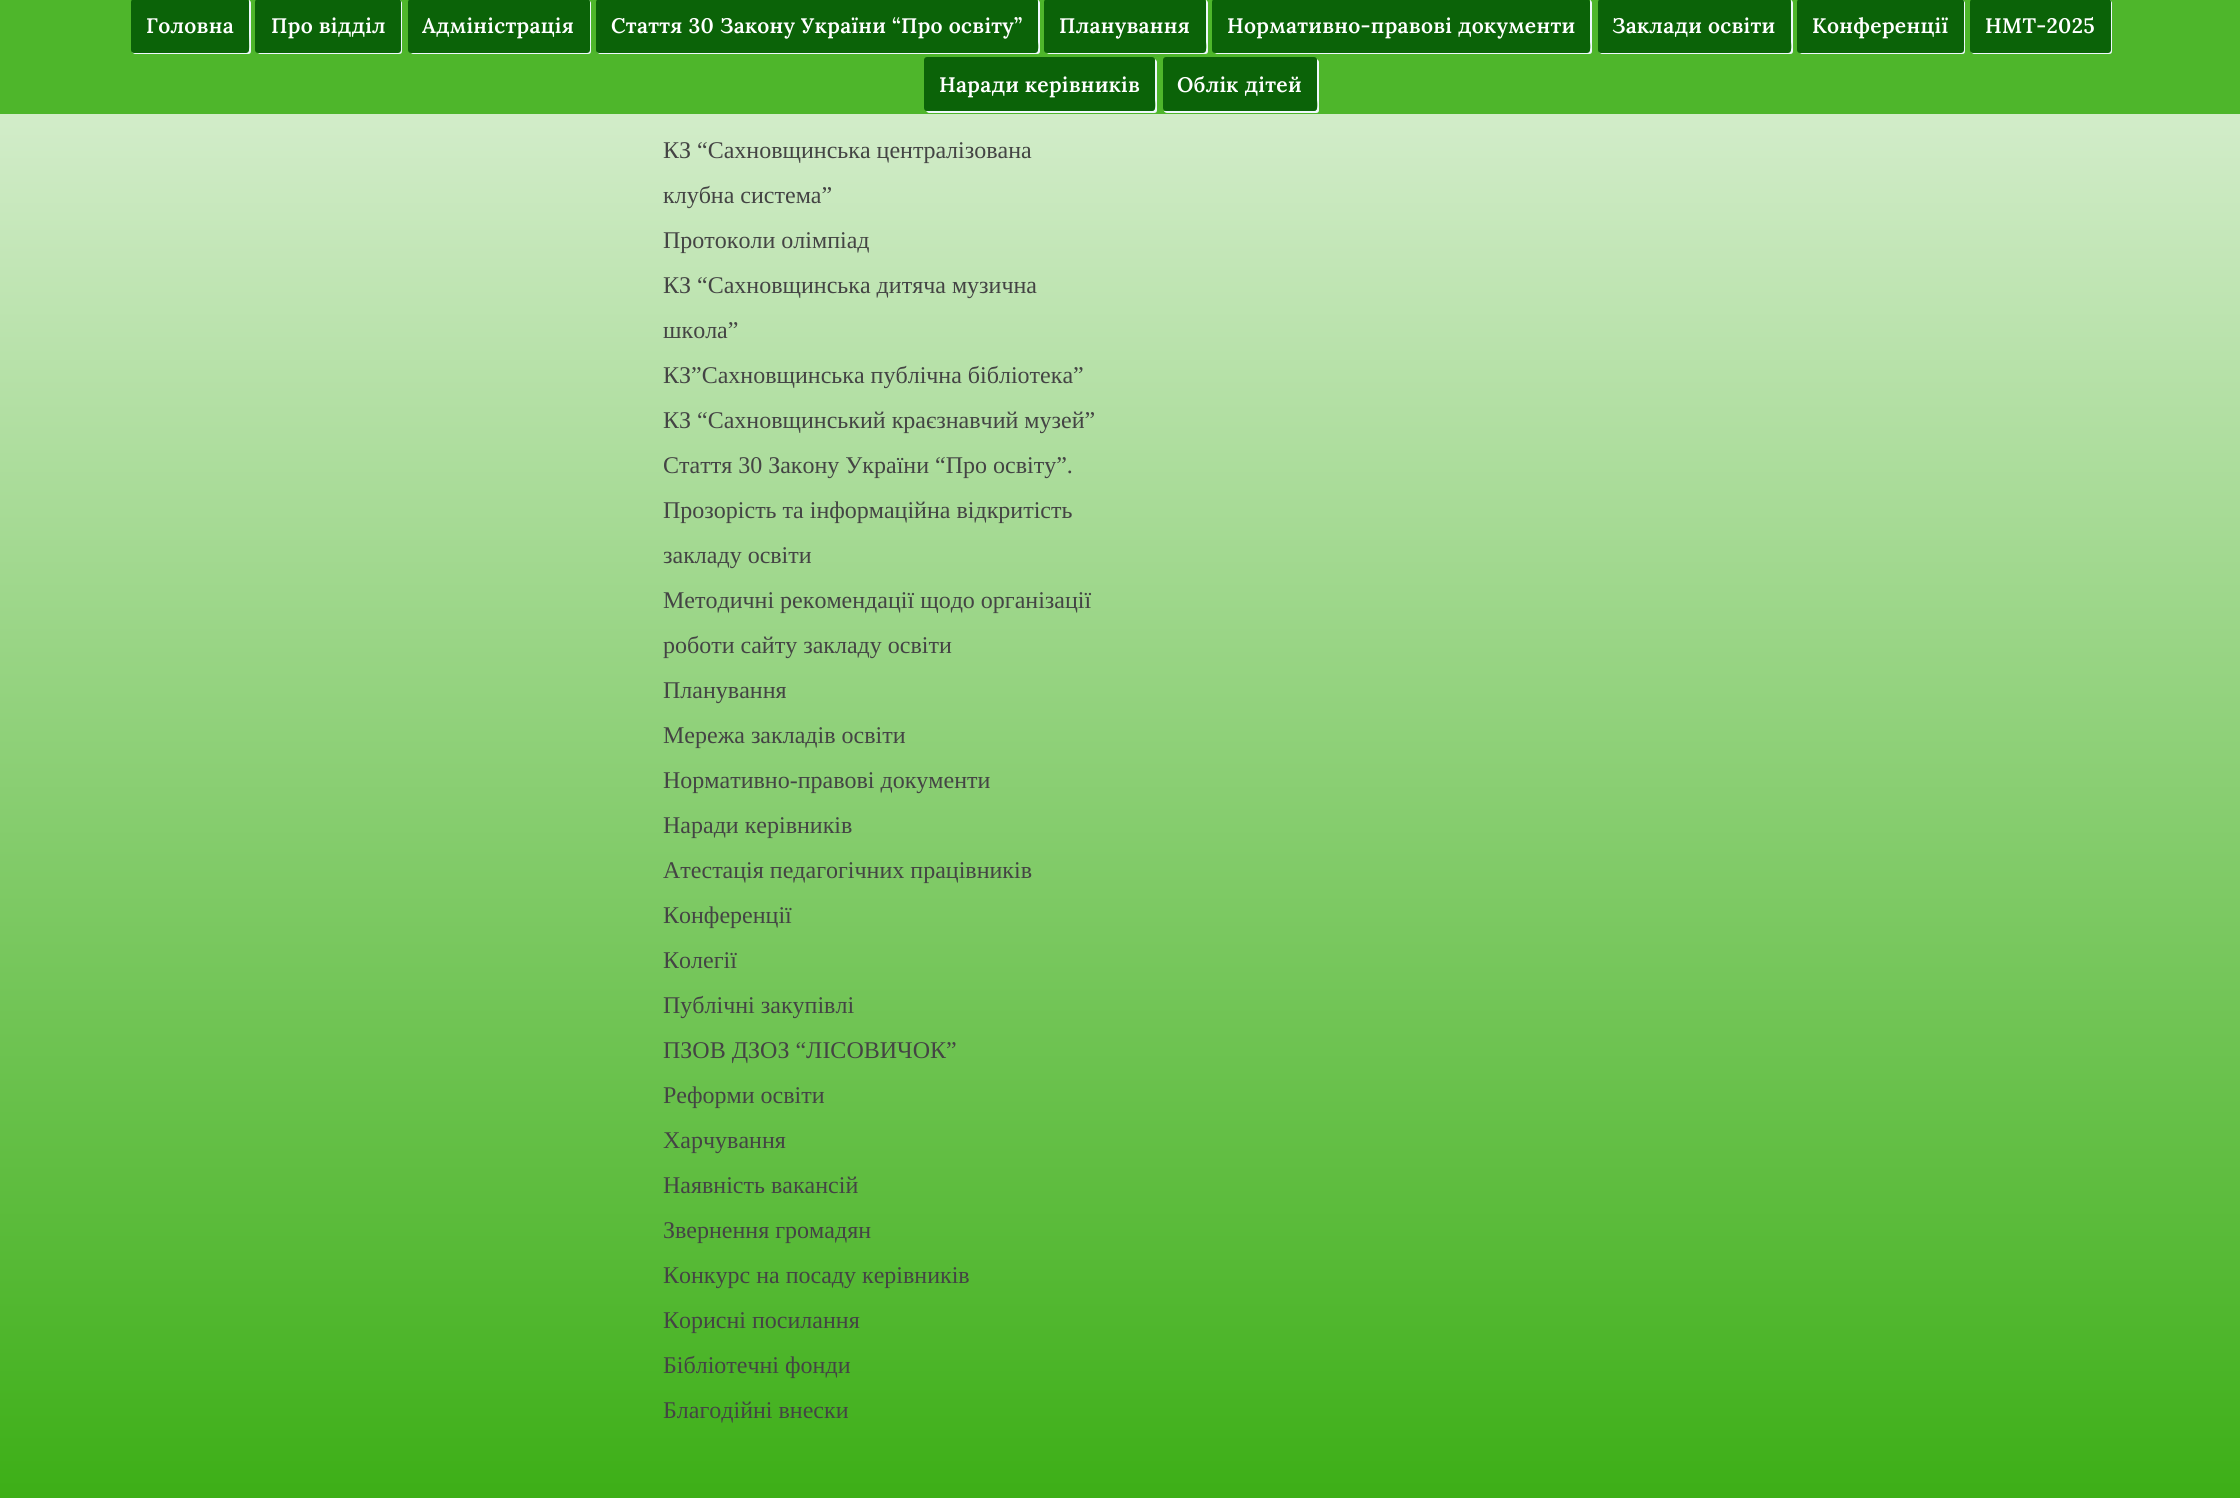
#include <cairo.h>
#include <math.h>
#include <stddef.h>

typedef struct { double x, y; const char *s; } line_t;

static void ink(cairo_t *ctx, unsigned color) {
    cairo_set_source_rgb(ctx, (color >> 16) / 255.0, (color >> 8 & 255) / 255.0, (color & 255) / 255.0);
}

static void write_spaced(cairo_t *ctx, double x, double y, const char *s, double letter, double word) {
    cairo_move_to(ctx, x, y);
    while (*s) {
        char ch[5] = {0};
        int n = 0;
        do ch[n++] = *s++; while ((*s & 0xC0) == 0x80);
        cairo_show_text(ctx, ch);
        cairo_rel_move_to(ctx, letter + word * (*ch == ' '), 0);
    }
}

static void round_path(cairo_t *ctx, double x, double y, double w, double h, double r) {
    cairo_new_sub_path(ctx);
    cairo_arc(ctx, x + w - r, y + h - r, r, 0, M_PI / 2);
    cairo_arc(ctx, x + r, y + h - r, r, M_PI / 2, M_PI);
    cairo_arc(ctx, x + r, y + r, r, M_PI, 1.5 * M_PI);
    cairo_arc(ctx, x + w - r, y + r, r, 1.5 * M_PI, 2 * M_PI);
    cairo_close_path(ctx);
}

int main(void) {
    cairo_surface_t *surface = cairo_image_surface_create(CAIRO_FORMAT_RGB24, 2240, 1498);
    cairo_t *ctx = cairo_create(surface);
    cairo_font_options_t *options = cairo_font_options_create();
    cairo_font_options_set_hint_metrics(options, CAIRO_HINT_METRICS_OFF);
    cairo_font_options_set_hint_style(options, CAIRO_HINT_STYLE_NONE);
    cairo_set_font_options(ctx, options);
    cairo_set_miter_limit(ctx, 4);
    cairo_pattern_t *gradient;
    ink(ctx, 0xFFFFFF);
    cairo_paint(ctx);
    ink(ctx, 0x4EB62B);
    cairo_rectangle(ctx, 0, 0, 2240, 114);
    cairo_fill(ctx);
    ink(ctx, 0xF0F8FF);
    cairo_new_path(ctx);
    cairo_move_to(ctx, 132, 52);
    cairo_curve_to(ctx, 133, 53, 134, 54, 135, 54);
    cairo_line_to(ctx, 248, 54);
    cairo_curve_to(ctx, 250, 54, 251, 53, 251, 51);
    cairo_line_to(ctx, 251, 3);
    cairo_curve_to(ctx, 251, 2, 250, 0, 249, 0);
    cairo_line_to(ctx, 249, 34);
    cairo_curve_to(ctx, 249, 57, 253, 52, 227, 52);
    cairo_close_path(ctx);
    cairo_fill(ctx);
    ink(ctx, 0x0B6308);
    round_path(ctx, 131, -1, 118, 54, 3);
    cairo_fill(ctx);
    cairo_select_font_face(ctx, "Lora SemiBold", CAIRO_FONT_SLANT_NORMAL, CAIRO_FONT_WEIGHT_NORMAL);
    cairo_set_font_size(ctx, 21);
    ink(ctx, 0xFFFFFF);
    write_spaced(ctx, 146, 33, "Головна", 0.3, 0);
    ink(ctx, 0xF0F8FF);
    cairo_new_path(ctx);
    cairo_move_to(ctx, 257, 52);
    cairo_curve_to(ctx, 258, 53, 259, 54, 260, 54);
    cairo_line_to(ctx, 399, 54);
    cairo_curve_to(ctx, 401, 54, 402, 53, 402, 51);
    cairo_line_to(ctx, 402, 3);
    cairo_curve_to(ctx, 402, 2, 401, 1, 400, 0);
    cairo_line_to(ctx, 400, 34);
    cairo_curve_to(ctx, 400, 59, 404, 52, 374, 52);
    cairo_close_path(ctx);
    cairo_fill(ctx);
    ink(ctx, 0x0B6308);
    round_path(ctx, 255, -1, 146, 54, 3);
    cairo_fill(ctx);
    ink(ctx, 0xFFFFFF);
    write_spaced(ctx, 271, 33, "Про відділ", 0.3, 0);
    ink(ctx, 0xF0F8FF);
    cairo_new_path(ctx);
    cairo_move_to(ctx, 410, 52);
    cairo_curve_to(ctx, 411, 53, 412, 54, 413, 54);
    cairo_line_to(ctx, 588, 54);
    cairo_curve_to(ctx, 590, 54, 591, 53, 591, 51);
    cairo_line_to(ctx, 591, 3);
    cairo_curve_to(ctx, 591, 2, 590, 1, 589, 0);
    cairo_line_to(ctx, 590, 42);
    cairo_curve_to(ctx, 590, 43, 591, 52, 586, 52);
    cairo_close_path(ctx);
    cairo_fill(ctx);
    ink(ctx, 0x0B6308);
    round_path(ctx, 408, -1, 182, 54, 3);
    cairo_fill(ctx);
    ink(ctx, 0xFFFFFF);
    write_spaced(ctx, 422, 33, "Адміністрація", 0.3, 0);
    ink(ctx, 0xF0F8FF);
    cairo_new_path(ctx);
    cairo_move_to(ctx, 597, 52);
    cairo_curve_to(ctx, 598, 53, 599, 54, 600, 54);
    cairo_line_to(ctx, 1037, 54);
    cairo_curve_to(ctx, 1039, 54, 1040, 53, 1040, 51);
    cairo_line_to(ctx, 1040, 3);
    cairo_curve_to(ctx, 1040, 2, 1039, 0, 1038, 0);
    cairo_line_to(ctx, 1038, 42);
    cairo_curve_to(ctx, 1038, 43, 1040, 52, 1035, 52);
    cairo_close_path(ctx);
    cairo_fill(ctx);
    ink(ctx, 0x0B6308);
    round_path(ctx, 596, -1, 442, 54, 3);
    cairo_fill(ctx);
    ink(ctx, 0xFFFFFF);
    write_spaced(ctx, 611, 33, "Стаття 30 Закону України “Про освіту”", 0.3, 0);
    ink(ctx, 0xF0F8FF);
    cairo_new_path(ctx);
    cairo_move_to(ctx, 1046, 52);
    cairo_curve_to(ctx, 1047, 53, 1048, 54, 1049, 54);
    cairo_line_to(ctx, 1205, 54);
    cairo_curve_to(ctx, 1207, 54, 1208, 53, 1208, 51);
    cairo_line_to(ctx, 1208, 3);
    cairo_curve_to(ctx, 1208, 2, 1207, 0, 1206, 0);
    cairo_line_to(ctx, 1206, 42);
    cairo_curve_to(ctx, 1206, 43, 1208, 52, 1203, 52);
    cairo_close_path(ctx);
    cairo_fill(ctx);
    ink(ctx, 0x0B6308);
    round_path(ctx, 1044, -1, 162, 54, 3);
    cairo_fill(ctx);
    ink(ctx, 0xFFFFFF);
    write_spaced(ctx, 1059, 33, "Планування", 0.3, 0);
    ink(ctx, 0xF0F8FF);
    cairo_new_path(ctx);
    cairo_move_to(ctx, 1214, 52);
    cairo_curve_to(ctx, 1215, 53, 1216, 54, 1217, 54);
    cairo_line_to(ctx, 1589, 54);
    cairo_curve_to(ctx, 1591, 54, 1592, 53, 1592, 51);
    cairo_line_to(ctx, 1592, 3);
    cairo_curve_to(ctx, 1592, 2, 1591, 0, 1590, 0);
    cairo_line_to(ctx, 1590, 42);
    cairo_curve_to(ctx, 1590, 43, 1592, 52, 1587, 52);
    cairo_close_path(ctx);
    cairo_fill(ctx);
    ink(ctx, 0x0B6308);
    round_path(ctx, 1212, -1, 378, 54, 3);
    cairo_fill(ctx);
    ink(ctx, 0xFFFFFF);
    write_spaced(ctx, 1227, 33, "Нормативно-правові документи", 0.3, 0);
    ink(ctx, 0xF0F8FF);
    cairo_new_path(ctx);
    cairo_move_to(ctx, 1599, 52);
    cairo_curve_to(ctx, 1600, 53, 1601, 54, 1602, 54);
    cairo_line_to(ctx, 1790, 54);
    cairo_curve_to(ctx, 1792, 54, 1793, 53, 1793, 51);
    cairo_line_to(ctx, 1793, 3);
    cairo_curve_to(ctx, 1793, 2, 1792, 0, 1791, 0);
    cairo_line_to(ctx, 1791, 42);
    cairo_curve_to(ctx, 1791, 43, 1793, 52, 1788, 52);
    cairo_close_path(ctx);
    cairo_fill(ctx);
    ink(ctx, 0x0B6308);
    round_path(ctx, 1598, -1, 193, 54, 3);
    cairo_fill(ctx);
    ink(ctx, 0xFFFFFF);
    write_spaced(ctx, 1612, 33, "Заклади освіти", 0.3, 0);
    ink(ctx, 0xF0F8FF);
    cairo_new_path(ctx);
    cairo_move_to(ctx, 1799, 52);
    cairo_curve_to(ctx, 1800, 53, 1801, 54, 1802, 54);
    cairo_line_to(ctx, 1962, 54);
    cairo_curve_to(ctx, 1964, 54, 1965, 53, 1965, 51);
    cairo_line_to(ctx, 1965, 3);
    cairo_curve_to(ctx, 1965, 2, 1964, 1, 1963, 0);
    cairo_line_to(ctx, 1964, 42);
    cairo_curve_to(ctx, 1964, 43, 1965, 52, 1960, 52);
    cairo_close_path(ctx);
    cairo_fill(ctx);
    ink(ctx, 0x0B6308);
    round_path(ctx, 1797, -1, 167, 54, 3);
    cairo_fill(ctx);
    ink(ctx, 0xFFFFFF);
    write_spaced(ctx, 1812, 33, "Конференції", 0.3, 0);
    ink(ctx, 0xF0F8FF);
    cairo_new_path(ctx);
    cairo_move_to(ctx, 1971, 52);
    cairo_curve_to(ctx, 1972, 53, 1973, 54, 1974, 54);
    cairo_line_to(ctx, 2109, 54);
    cairo_curve_to(ctx, 2111, 54, 2112, 53, 2112, 51);
    cairo_line_to(ctx, 2112, 3);
    cairo_curve_to(ctx, 2112, 2, 2111, 1, 2110, 0);
    cairo_line_to(ctx, 2110, 34);
    cairo_curve_to(ctx, 2110, 59, 2114, 52, 2085, 52);
    cairo_close_path(ctx);
    cairo_fill(ctx);
    ink(ctx, 0x0B6308);
    round_path(ctx, 1970, -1, 141, 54, 3);
    cairo_fill(ctx);
    ink(ctx, 0xFFFFFF);
    write_spaced(ctx, 1985, 33, "НМТ-2025", 0.3, 0);
    ink(ctx, 0xF0F8FF);
    cairo_new_path(ctx);
    cairo_move_to(ctx, 926, 111);
    cairo_curve_to(ctx, 927, 112, 928, 113, 929, 113);
    cairo_line_to(ctx, 1154, 113);
    cairo_curve_to(ctx, 1156, 113, 1157, 112, 1157, 110);
    cairo_line_to(ctx, 1157, 62);
    cairo_curve_to(ctx, 1157, 61, 1156, 60, 1155, 59);
    cairo_line_to(ctx, 1155, 100);
    cairo_curve_to(ctx, 1155, 101, 1157, 111, 1152, 111);
    cairo_close_path(ctx);
    cairo_fill(ctx);
    ink(ctx, 0x0B6308);
    round_path(ctx, 924, 57, 231, 54, 3);
    cairo_fill(ctx);
    ink(ctx, 0xFFFFFF);
    write_spaced(ctx, 939, 92, "Наради керівників", 0.3, 0);
    ink(ctx, 0xF0F8FF);
    cairo_new_path(ctx);
    cairo_move_to(ctx, 1164, 111);
    cairo_curve_to(ctx, 1164, 112, 1166, 113, 1167, 113);
    cairo_line_to(ctx, 1316, 113);
    cairo_curve_to(ctx, 1318, 113, 1319, 112, 1319, 110);
    cairo_line_to(ctx, 1319, 62);
    cairo_curve_to(ctx, 1319, 61, 1318, 60, 1317, 59);
    cairo_line_to(ctx, 1317, 100);
    cairo_curve_to(ctx, 1317, 101, 1319, 111, 1314, 111);
    cairo_close_path(ctx);
    cairo_fill(ctx);
    ink(ctx, 0x0B6308);
    round_path(ctx, 1163, 57, 154, 54, 3);
    cairo_fill(ctx);
    ink(ctx, 0xFFFFFF);
    write_spaced(ctx, 1177, 92, "Облік дітей", 0.3, 0);
    gradient = cairo_pattern_create_linear(1121, 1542, 1121, -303);
    cairo_pattern_add_color_stop_rgba(gradient, 0, 0.22, 0.678, 0.067, 1);
    cairo_pattern_add_color_stop_rgba(gradient, 1, 1, 1, 1, 1);
    cairo_set_source(ctx, gradient);
    cairo_pattern_destroy(gradient);
    cairo_rectangle(ctx, 0, 114, 2240, 1384);
    cairo_fill(ctx);
    cairo_select_font_face(ctx, "Liberation Serif", CAIRO_FONT_SLANT_NORMAL, CAIRO_FONT_WEIGHT_NORMAL);
    cairo_set_font_size(ctx, 24);
    ink(ctx, 0x444444);
    {
        static const line_t items[] = {
            {663, 158, "КЗ “Сахновщинська централізована"},
            {663, 203, "клубна система”"},
            {663, 248, "Протоколи олімпіад"},
            {663, 293, "КЗ “Сахновщинська дитяча музична"},
            {663, 338, "школа”"},
            {663, 383, "КЗ”Сахновщинська публічна бібліотека”"},
            {663, 428, "КЗ “Сахновщинський краєзнавчий музей”"},
            {663, 473, "Стаття 30 Закону України “Про освіту”."},
            {663, 518, "Прозорість та інформаційна відкритість"},
            {663, 563, "закладу освіти"},
            {663, 608, "Методичні рекомендації щодо організації"},
            {663, 653, "роботи сайту закладу освіти"},
            {663, 698, "Планування"},
            {663, 743, "Мережа закладів освіти"},
            {663, 788, "Нормативно-правові документи"},
            {663, 833, "Наради керівників"},
            {663, 878, "Атестація педагогічних працівників"},
            {663, 923, "Конференції"},
            {663, 968, "Колегії"},
            {663, 1013, "Публічні закупівлі"},
            {663, 1058, "ПЗОВ ДЗОЗ “ЛІСОВИЧОК”"},
            {663, 1103, "Реформи освіти"},
            {663, 1148, "Харчування"},
            {663, 1193, "Наявність вакансій"},
            {663, 1238, "Звернення громадян"},
            {663, 1283, "Конкурс на посаду керівників"},
            {663, 1328, "Корисні посилання"},
            {663, 1373, "Бібліотечні фонди"},
            {663, 1418, "Благодійні внески"},
        };
        for (size_t i = 0; i < sizeof items / sizeof *items; i++) {
            cairo_move_to(ctx, items[i].x, items[i].y);
            cairo_show_text(ctx, items[i].s);
        }
    }
    cairo_surface_write_to_png(surface, "image.png");
    cairo_font_options_destroy(options);
    cairo_destroy(ctx);
    cairo_surface_destroy(surface);
    return 0;
}
